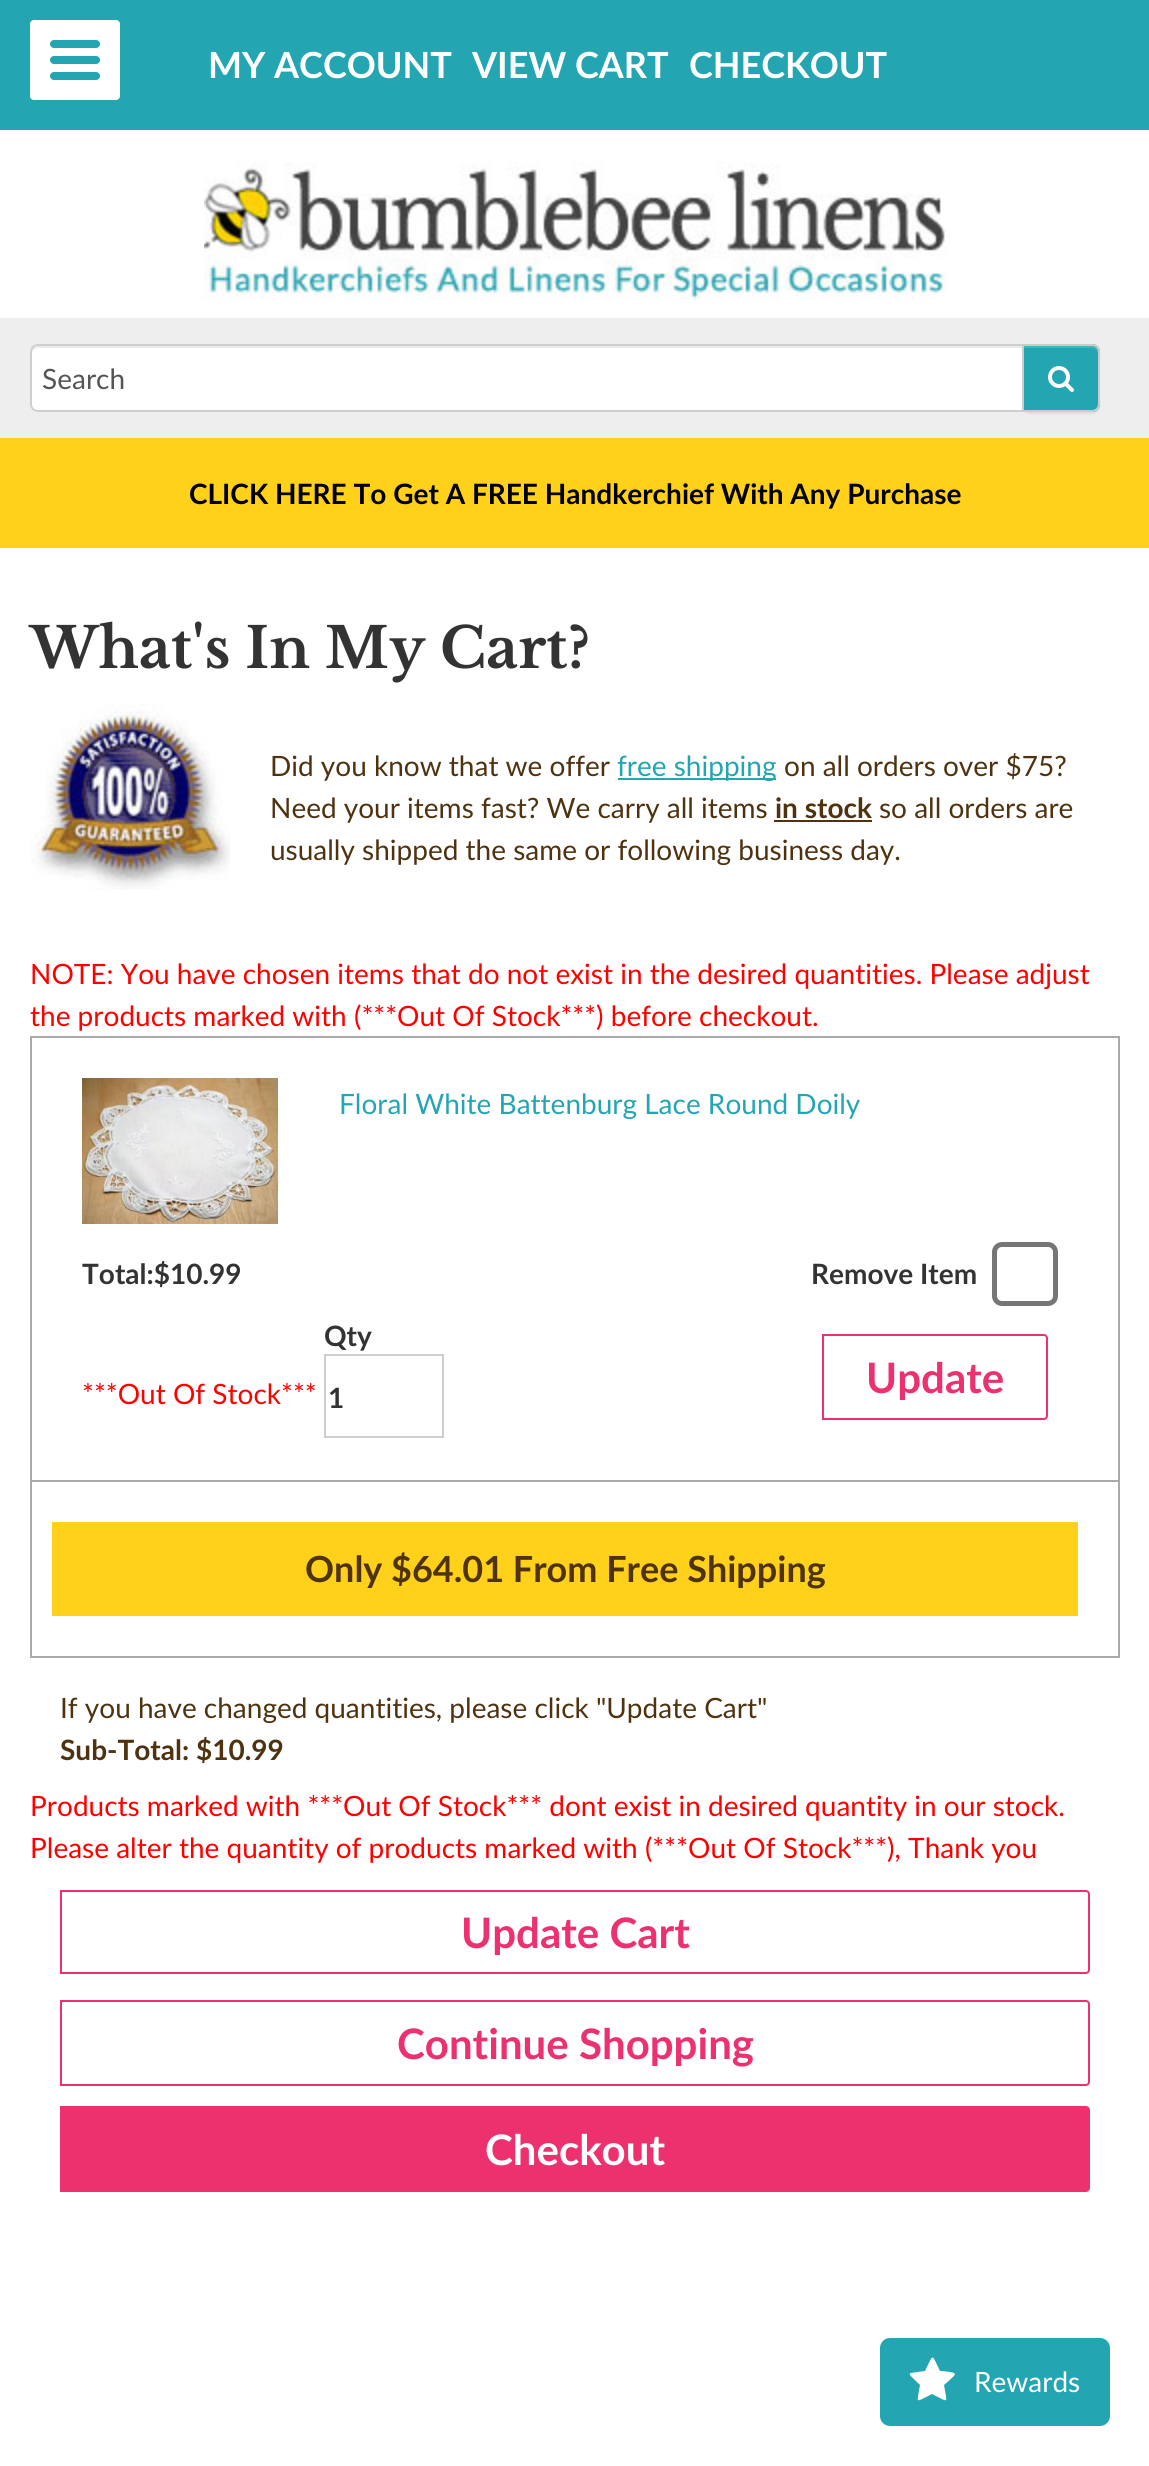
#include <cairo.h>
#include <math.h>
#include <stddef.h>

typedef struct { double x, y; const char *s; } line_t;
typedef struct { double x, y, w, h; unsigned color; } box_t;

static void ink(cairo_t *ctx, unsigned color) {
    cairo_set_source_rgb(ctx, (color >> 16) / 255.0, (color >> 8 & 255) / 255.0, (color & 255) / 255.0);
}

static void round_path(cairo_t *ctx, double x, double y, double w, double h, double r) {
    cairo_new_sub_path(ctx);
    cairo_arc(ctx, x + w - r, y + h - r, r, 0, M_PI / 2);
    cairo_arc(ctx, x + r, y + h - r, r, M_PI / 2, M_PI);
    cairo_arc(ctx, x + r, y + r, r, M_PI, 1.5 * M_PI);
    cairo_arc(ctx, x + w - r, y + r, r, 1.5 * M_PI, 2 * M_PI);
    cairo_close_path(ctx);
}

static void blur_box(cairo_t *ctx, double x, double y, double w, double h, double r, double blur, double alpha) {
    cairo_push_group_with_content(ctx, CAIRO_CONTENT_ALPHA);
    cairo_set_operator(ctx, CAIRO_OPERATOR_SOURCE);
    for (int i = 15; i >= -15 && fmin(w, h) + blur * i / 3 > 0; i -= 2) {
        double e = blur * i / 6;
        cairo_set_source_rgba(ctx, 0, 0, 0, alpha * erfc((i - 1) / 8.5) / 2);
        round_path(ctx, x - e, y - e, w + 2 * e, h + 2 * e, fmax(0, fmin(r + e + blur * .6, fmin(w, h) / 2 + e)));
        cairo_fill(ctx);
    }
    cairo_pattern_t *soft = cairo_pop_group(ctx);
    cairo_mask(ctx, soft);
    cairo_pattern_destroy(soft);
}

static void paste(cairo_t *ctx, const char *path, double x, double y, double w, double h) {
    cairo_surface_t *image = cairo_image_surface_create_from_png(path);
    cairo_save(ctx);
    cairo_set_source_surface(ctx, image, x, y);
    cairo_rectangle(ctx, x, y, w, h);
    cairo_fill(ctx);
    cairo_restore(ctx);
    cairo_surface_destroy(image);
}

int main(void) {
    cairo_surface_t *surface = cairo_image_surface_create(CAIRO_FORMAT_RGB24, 1149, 2466);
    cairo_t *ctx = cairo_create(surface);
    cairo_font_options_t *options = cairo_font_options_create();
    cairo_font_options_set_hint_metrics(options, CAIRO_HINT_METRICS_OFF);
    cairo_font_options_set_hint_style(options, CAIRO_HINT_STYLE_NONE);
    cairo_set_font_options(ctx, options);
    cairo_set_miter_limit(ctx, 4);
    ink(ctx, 0xFFFFFF);
    cairo_paint(ctx);
    ink(ctx, 0x24A6B2);
    cairo_rectangle(ctx, 0, 0, 1149, 130);
    cairo_fill(ctx);
    ink(ctx, 0xFFFFFF);
    round_path(ctx, 30, 20, 90, 80, 4);
    cairo_fill(ctx);
    ink(ctx, 0x24A6B2);
    round_path(ctx, 50, 40, 50, 8, 4);
    cairo_fill(ctx);
    round_path(ctx, 50, 56, 50, 8, 4);
    cairo_fill(ctx);
    round_path(ctx, 50, 72, 50, 8, 4);
    cairo_fill(ctx);
    cairo_select_font_face(ctx, "Lato", CAIRO_FONT_SLANT_NORMAL, CAIRO_FONT_WEIGHT_BOLD);
    cairo_set_font_size(ctx, 36);
    ink(ctx, 0xFFFFFF);
    {
        static const line_t items[] = {
            {208, 78, "MY ACCOUNT"},
            {472, 78, "VIEW CART"},
            {689, 78, "CHECKOUT"},
        };
        for (size_t i = 0; i < sizeof items / sizeof *items; i++) {
            cairo_move_to(ctx, items[i].x, items[i].y);
            cairo_show_text(ctx, items[i].s);
        }
    }
    paste(ctx, "media/1.png", 204, 162, 744, 138);
    ink(ctx, 0xEEEEEE);
    cairo_rectangle(ctx, 0, 318, 1149, 120);
    cairo_fill(ctx);
    ink(ctx, 0xFFFFFF);
    cairo_new_path(ctx);
    cairo_move_to(ctx, 38, 344);
    cairo_line_to(ctx, 1024, 344);
    cairo_line_to(ctx, 1024, 412);
    cairo_line_to(ctx, 38, 412);
    cairo_curve_to(ctx, 33.5, 412, 30, 408.5, 30, 404);
    cairo_line_to(ctx, 30, 352);
    cairo_curve_to(ctx, 30, 347.5, 33.5, 344, 38, 344);
    cairo_close_path(ctx);
    cairo_fill(ctx);
    ink(ctx, 0xECECEC);
    cairo_new_path(ctx);
    cairo_move_to(ctx, 38, 348);
    cairo_line_to(ctx, 1022, 348);
    cairo_line_to(ctx, 1022, 346);
    cairo_line_to(ctx, 38, 346);
    cairo_curve_to(ctx, 33, 346, 32, 350, 32, 354);
    cairo_curve_to(ctx, 32, 351, 35, 348, 38, 348);
    cairo_close_path(ctx);
    cairo_fill(ctx);
    cairo_new_path(ctx);
    cairo_move_to(ctx, 38, 345);
    cairo_line_to(ctx, 1023, 345);
    cairo_line_to(ctx, 1023, 411);
    cairo_line_to(ctx, 38, 411);
    cairo_curve_to(ctx, 34, 411, 31, 408, 31, 404);
    cairo_line_to(ctx, 31, 352);
    cairo_curve_to(ctx, 31, 348, 34, 345, 38, 345);
    cairo_close_path(ctx);
    ink(ctx, 0xCECECE);
    cairo_stroke(ctx);
    cairo_select_font_face(ctx, "Lato", CAIRO_FONT_SLANT_NORMAL, CAIRO_FONT_WEIGHT_NORMAL);
    cairo_set_font_size(ctx, 28);
    ink(ctx, 0x555555);
    cairo_move_to(ctx, 42, 389);
    cairo_show_text(ctx, "Search");
    ink(ctx, 0x000000);
    blur_box(ctx, 1022, 346, 78, 68, 8, 1, 0.07);
    ink(ctx, 0x24A6B2);
    cairo_new_path(ctx);
    cairo_move_to(ctx, 1022, 344);
    cairo_line_to(ctx, 1092, 344);
    cairo_curve_to(ctx, 1096.5, 344, 1100, 347.5, 1100, 352);
    cairo_line_to(ctx, 1100, 404);
    cairo_curve_to(ctx, 1100, 408.5, 1096.5, 412, 1092, 412);
    cairo_line_to(ctx, 1022, 412);
    cairo_close_path(ctx);
    cairo_fill(ctx);
    ink(ctx, 0x45B3BE);
    cairo_new_path(ctx);
    cairo_move_to(ctx, 1024, 348);
    cairo_line_to(ctx, 1092, 348);
    cairo_curve_to(ctx, 1095, 348, 1098, 351, 1098, 354);
    cairo_line_to(ctx, 1098, 352);
    cairo_curve_to(ctx, 1098, 349, 1095, 346, 1092, 346);
    cairo_line_to(ctx, 1024, 346);
    cairo_close_path(ctx);
    cairo_fill(ctx);
    cairo_new_path(ctx);
    cairo_move_to(ctx, 1023, 345);
    cairo_line_to(ctx, 1092, 345);
    cairo_curve_to(ctx, 1096, 345, 1099, 348, 1099, 352);
    cairo_line_to(ctx, 1099, 404);
    cairo_curve_to(ctx, 1099, 408, 1096, 411, 1092, 411);
    cairo_line_to(ctx, 1023, 411);
    cairo_close_path(ctx);
    ink(ctx, 0xCCCCCC);
    cairo_stroke(ctx);
    paste(ctx, "media/2.png", 1048, 366, 26, 26);
    ink(ctx, 0xFFD11A);
    cairo_rectangle(ctx, 0, 438, 1149, 110);
    cairo_fill(ctx);
    cairo_select_font_face(ctx, "Lato", CAIRO_FONT_SLANT_NORMAL, CAIRO_FONT_WEIGHT_BOLD);
    ink(ctx, 0x000000);
    cairo_move_to(ctx, 189, 504);
    cairo_show_text(ctx, "CLICK HERE To Get A FREE Handkerchief With Any Purchase");
    cairo_select_font_face(ctx, "Libre Baskerville", CAIRO_FONT_SLANT_NORMAL, CAIRO_FONT_WEIGHT_BOLD);
    cairo_set_font_size(ctx, 56);
    ink(ctx, 0x333333);
    cairo_move_to(ctx, 30, 668);
    cairo_show_text(ctx, "What's In My Cart?");
    paste(ctx, "media/3.png", 30, 704, 200, 186);
    cairo_select_font_face(ctx, "Lato", CAIRO_FONT_SLANT_NORMAL, CAIRO_FONT_WEIGHT_NORMAL);
    cairo_set_font_size(ctx, 28);
    ink(ctx, 0x4F3310);
    cairo_move_to(ctx, 270, 776);
    cairo_show_text(ctx, "Did you know that we offer");
    ink(ctx, 0x24A6B2);
    cairo_rectangle(ctx, 618, 778, 158, 2);
    cairo_fill(ctx);
    cairo_move_to(ctx, 617, 776);
    cairo_show_text(ctx, "free shipping");
    ink(ctx, 0x4F3310);
    cairo_move_to(ctx, 784, 776);
    cairo_show_text(ctx, "on all orders over $75?");
    cairo_move_to(ctx, 270, 818);
    cairo_show_text(ctx, "Need your items fast? We carry all items");
    cairo_select_font_face(ctx, "Lato", CAIRO_FONT_SLANT_NORMAL, CAIRO_FONT_WEIGHT_BOLD);
    cairo_move_to(ctx, 775, 818);
    cairo_show_text(ctx, "in stock");
    cairo_rectangle(ctx, 774, 820, 98, 2);
    cairo_fill(ctx);
    cairo_select_font_face(ctx, "Lato", CAIRO_FONT_SLANT_NORMAL, CAIRO_FONT_WEIGHT_NORMAL);
    cairo_move_to(ctx, 879, 818);
    cairo_show_text(ctx, "so all orders are");
    cairo_move_to(ctx, 270, 860);
    cairo_show_text(ctx, "usually shipped the same or following business day.");
    ink(ctx, 0xFF0000);
    cairo_move_to(ctx, 30, 984);
    cairo_show_text(ctx, "NOTE: You have chosen items that do not exist in the desired quantities. Please adjust");
    cairo_move_to(ctx, 30, 1026);
    cairo_show_text(ctx, "the products marked with (***Out Of Stock***) before checkout.");
    cairo_rectangle(ctx, 31, 1037, 1088, 444);
    ink(ctx, 0xAAAAAA);
    cairo_stroke(ctx);
    paste(ctx, "media/4.png", 82, 1078, 196, 146);
    ink(ctx, 0x24A6B2);
    cairo_move_to(ctx, 339, 1114);
    cairo_show_text(ctx, "Floral White Battenburg Lace Round Doily");
    cairo_select_font_face(ctx, "Lato", CAIRO_FONT_SLANT_NORMAL, CAIRO_FONT_WEIGHT_BOLD);
    ink(ctx, 0x333333);
    cairo_move_to(ctx, 82, 1284);
    cairo_show_text(ctx, "Total:$10.99");
    cairo_select_font_face(ctx, "Lato", CAIRO_FONT_SLANT_NORMAL, CAIRO_FONT_WEIGHT_NORMAL);
    ink(ctx, 0xFF0000);
    cairo_move_to(ctx, 82, 1404);
    cairo_show_text(ctx, "***Out Of Stock***");
    cairo_select_font_face(ctx, "Lato", CAIRO_FONT_SLANT_NORMAL, CAIRO_FONT_WEIGHT_BOLD);
    ink(ctx, 0x333333);
    cairo_move_to(ctx, 324, 1346);
    cairo_show_text(ctx, "Qty");
    cairo_rectangle(ctx, 325, 1355, 118, 82);
    ink(ctx, 0xCECECE);
    cairo_stroke(ctx);
    ink(ctx, 0x333333);
    cairo_move_to(ctx, 328, 1408);
    cairo_show_text(ctx, "1");
    cairo_move_to(ctx, 811, 1284);
    cairo_show_text(ctx, "Remove Item");
    round_path(ctx, 994.5, 1244.5, 61, 59, 7.5);
    ink(ctx, 0x767676);
    cairo_set_line_width(ctx, 5);
    cairo_stroke(ctx);
    cairo_new_path(ctx);
    cairo_move_to(ctx, 823, 1335);
    cairo_line_to(ctx, 1044, 1335);
    cairo_curve_to(ctx, 1045.5, 1335, 1047, 1336.5, 1047, 1338);
    cairo_line_to(ctx, 1047, 1416);
    cairo_curve_to(ctx, 1047, 1417.5, 1045.5, 1419, 1044, 1419);
    cairo_line_to(ctx, 823, 1419);
    cairo_close_path(ctx);
    ink(ctx, 0xEC316E);
    cairo_set_line_width(ctx, 2);
    cairo_stroke(ctx);
    cairo_set_font_size(ctx, 42);
    cairo_move_to(ctx, 866, 1393);
    cairo_show_text(ctx, "Update");
    {
        static const box_t items[] = {
            {1118, 1482, 2, 176, 0xAAAAAA},
            {30, 1656, 1090, 2, 0xAAAAAA},
            {30, 1482, 2, 176, 0xAAAAAA},
            {52, 1522, 1026, 94, 0xFFD11A},
        };
        for (size_t i = 0; i < sizeof items / sizeof *items; i++) {
            ink(ctx, items[i].color);
            cairo_rectangle(ctx, items[i].x, items[i].y, items[i].w, items[i].h);
            cairo_fill(ctx);
        }
    }
    cairo_set_font_size(ctx, 36);
    ink(ctx, 0x4F3310);
    cairo_move_to(ctx, 305, 1582);
    cairo_show_text(ctx, "Only $64.01 From Free Shipping");
    cairo_select_font_face(ctx, "Lato", CAIRO_FONT_SLANT_NORMAL, CAIRO_FONT_WEIGHT_NORMAL);
    cairo_set_font_size(ctx, 28);
    cairo_move_to(ctx, 60, 1718);
    cairo_show_text(ctx, "If you have changed quantities, please click \"Update Cart\"");
    cairo_select_font_face(ctx, "Lato", CAIRO_FONT_SLANT_NORMAL, CAIRO_FONT_WEIGHT_BOLD);
    cairo_move_to(ctx, 60, 1760);
    cairo_show_text(ctx, "Sub-Total: $10.99");
    cairo_select_font_face(ctx, "Lato", CAIRO_FONT_SLANT_NORMAL, CAIRO_FONT_WEIGHT_NORMAL);
    ink(ctx, 0xFF0000);
    cairo_move_to(ctx, 30, 1816);
    cairo_show_text(ctx, "Products marked with ***Out Of Stock*** dont exist in desired quantity in our stock.");
    cairo_move_to(ctx, 30, 1858);
    cairo_show_text(ctx, "Please alter the quantity of products marked with (***Out Of Stock***), Thank you");
    cairo_new_path(ctx);
    cairo_move_to(ctx, 61, 1891);
    cairo_line_to(ctx, 1086, 1891);
    cairo_curve_to(ctx, 1087.5, 1891, 1089, 1892.5, 1089, 1894);
    cairo_line_to(ctx, 1089, 1970);
    cairo_curve_to(ctx, 1089, 1971.5, 1087.5, 1973, 1086, 1973);
    cairo_line_to(ctx, 61, 1973);
    cairo_close_path(ctx);
    ink(ctx, 0xEC316E);
    cairo_stroke(ctx);
    cairo_select_font_face(ctx, "Lato", CAIRO_FONT_SLANT_NORMAL, CAIRO_FONT_WEIGHT_BOLD);
    cairo_set_font_size(ctx, 42);
    cairo_move_to(ctx, 461, 1948);
    cairo_show_text(ctx, "Update Cart");
    cairo_new_path(ctx);
    cairo_move_to(ctx, 61, 2001);
    cairo_line_to(ctx, 1086, 2001);
    cairo_curve_to(ctx, 1087.5, 2001, 1089, 2002.5, 1089, 2004);
    cairo_line_to(ctx, 1089, 2082);
    cairo_curve_to(ctx, 1089, 2083.5, 1087.5, 2085, 1086, 2085);
    cairo_line_to(ctx, 61, 2085);
    cairo_close_path(ctx);
    cairo_stroke(ctx);
    cairo_move_to(ctx, 397, 2059);
    cairo_show_text(ctx, "Continue Shopping");
    cairo_new_path(ctx);
    cairo_move_to(ctx, 61, 2107);
    cairo_line_to(ctx, 1086, 2107);
    cairo_curve_to(ctx, 1087.5, 2107, 1089, 2108.5, 1089, 2110);
    cairo_line_to(ctx, 1089, 2188);
    cairo_curve_to(ctx, 1089, 2189.5, 1087.5, 2191, 1086, 2191);
    cairo_line_to(ctx, 61, 2191);
    cairo_close_path(ctx);
    cairo_fill_preserve(ctx);
    cairo_stroke(ctx);
    ink(ctx, 0xFFFFFF);
    cairo_move_to(ctx, 485, 2165);
    cairo_show_text(ctx, "Checkout");
    ink(ctx, 0x24A6B2);
    round_path(ctx, 880, 2338, 230, 88, 10);
    cairo_fill(ctx);
    ink(ctx, 0xFFFFFF);
    cairo_new_path(ctx);
    cairo_move_to(ctx, 955, 2374);
    cairo_curve_to(ctx, 955, 2376, 946, 2383, 944, 2385);
    cairo_curve_to(ctx, 947, 2404, 950, 2403, 932, 2394);
    cairo_curve_to(ctx, 914, 2403, 917, 2404, 920, 2385);
    cairo_curve_to(ctx, 906, 2371, 905, 2374, 925, 2371);
    cairo_curve_to(ctx, 934, 2353, 931, 2353, 940, 2371);
    cairo_curve_to(ctx, 942, 2371, 955, 2372, 955, 2374);
    cairo_close_path(ctx);
    cairo_fill(ctx);
    cairo_select_font_face(ctx, "Lato", CAIRO_FONT_SLANT_NORMAL, CAIRO_FONT_WEIGHT_NORMAL);
    cairo_set_font_size(ctx, 28);
    cairo_move_to(ctx, 974, 2392);
    cairo_show_text(ctx, "Rewards");
    cairo_surface_write_to_png(surface, "image.png");
    cairo_font_options_destroy(options);
    cairo_destroy(ctx);
    cairo_surface_destroy(surface);
    return 0;
}
